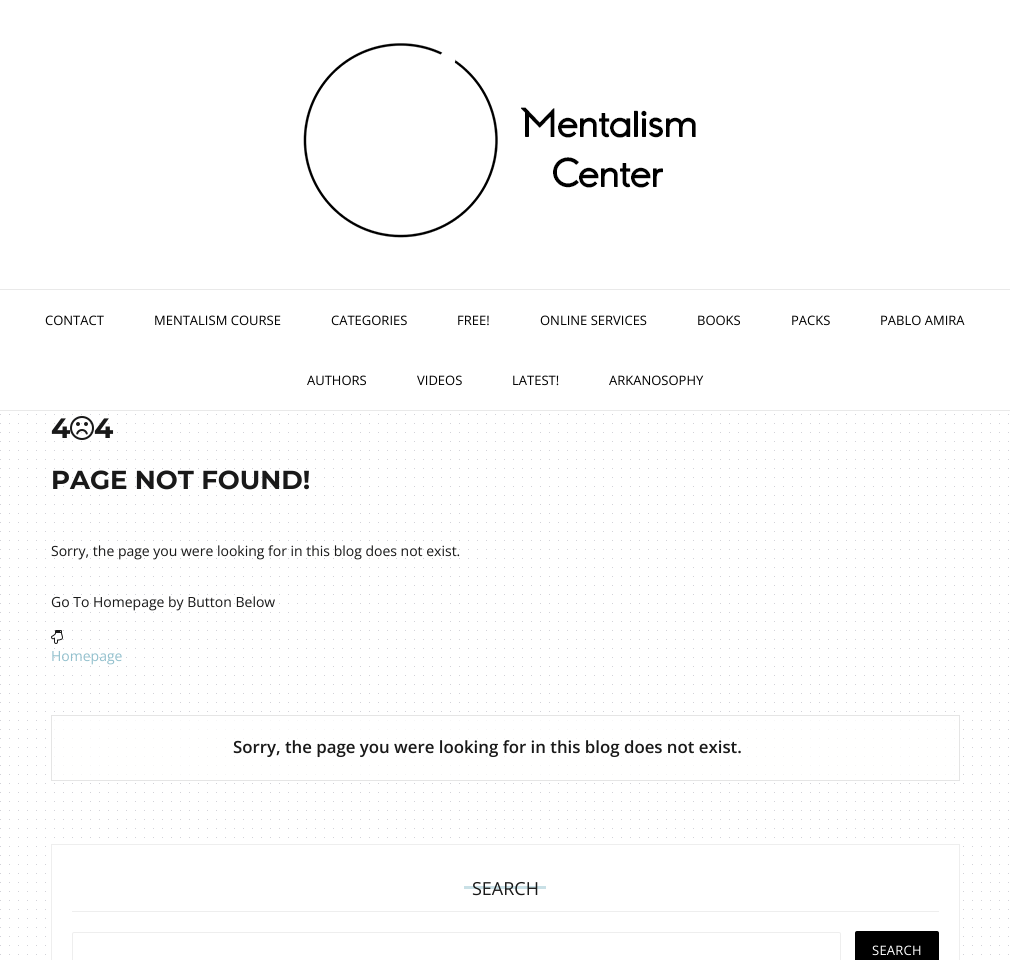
#include <cairo.h>
#include <math.h>
#include <stddef.h>

typedef struct { double x, y; const char *s; } line_t;

static void ink(cairo_t *ctx, unsigned color) {
    cairo_set_source_rgb(ctx, (color >> 16) / 255.0, (color >> 8 & 255) / 255.0, (color & 255) / 255.0);
}

static void write_spaced(cairo_t *ctx, double x, double y, const char *s, double letter, double word) {
    cairo_move_to(ctx, x, y);
    while (*s) {
        char ch[5] = {0};
        int n = 0;
        do ch[n++] = *s++; while ((*s & 0xC0) == 0x80);
        cairo_show_text(ctx, ch);
        cairo_rel_move_to(ctx, letter + word * (*ch == ' '), 0);
    }
}

static void round_path(cairo_t *ctx, double x, double y, double w, double h, double r) {
    cairo_new_sub_path(ctx);
    cairo_arc(ctx, x + w - r, y + h - r, r, 0, M_PI / 2);
    cairo_arc(ctx, x + r, y + h - r, r, M_PI / 2, M_PI);
    cairo_arc(ctx, x + r, y + r, r, M_PI, 1.5 * M_PI);
    cairo_arc(ctx, x + w - r, y + r, r, 1.5 * M_PI, 2 * M_PI);
    cairo_close_path(ctx);
}

static void paste(cairo_t *ctx, const char *path, double x, double y, double w, double h) {
    cairo_surface_t *image = cairo_image_surface_create_from_png(path);
    cairo_save(ctx);
    cairo_set_source_surface(ctx, image, x, y);
    cairo_rectangle(ctx, x, y, w, h);
    cairo_fill(ctx);
    cairo_restore(ctx);
    cairo_surface_destroy(image);
}

int main(void) {
    cairo_surface_t *surface = cairo_image_surface_create(CAIRO_FORMAT_RGB24, 1010, 960);
    cairo_t *ctx = cairo_create(surface);
    cairo_font_options_t *options = cairo_font_options_create();
    cairo_font_options_set_hint_metrics(options, CAIRO_HINT_METRICS_OFF);
    cairo_font_options_set_hint_style(options, CAIRO_HINT_STYLE_NONE);
    cairo_set_font_options(ctx, options);
    cairo_set_miter_limit(ctx, 4);
    ink(ctx, 0xFFFFFF);
    cairo_paint(ctx);
    paste(ctx, "media/1.png", 0, 414, 1009, 541);
    paste(ctx, "media/2.png", 303, 43, 393, 195);
    ink(ctx, 0xE9E9E9);
    cairo_rectangle(ctx, 0, 289, 1010, 1);
    cairo_fill(ctx);
    cairo_rectangle(ctx, 0, 410, 1010, 1);
    cairo_fill(ctx);
    cairo_select_font_face(ctx, "Open Sans", CAIRO_FONT_SLANT_NORMAL, CAIRO_FONT_WEIGHT_NORMAL);
    cairo_set_font_size(ctx, 13);
    ink(ctx, 0x000000);
    {
        static const line_t items[] = {
            {45, 325, "CONTACT"},
            {154, 325, "MENTALISM COURSE"},
            {331, 325, "CATEGORIES"},
            {457, 325, "FREE!"},
            {540, 325, "ONLINE SERVICES"},
            {697, 325, "BOOKS"},
            {791, 325, "PACKS"},
            {880, 325, "PABLO AMIRA"},
            {307, 385, "AUTHORS"},
            {417, 385, "VIDEOS"},
            {512, 385, "LATEST!"},
            {609, 385, "ARKANOSOPHY"},
        };
        for (size_t i = 0; i < sizeof items / sizeof *items; i++) {
            cairo_move_to(ctx, items[i].x, items[i].y);
            cairo_show_text(ctx, items[i].s);
        }
    }
    cairo_select_font_face(ctx, "Montserrat", CAIRO_FONT_SLANT_NORMAL, CAIRO_FONT_WEIGHT_BOLD);
    cairo_set_font_size(ctx, 28);
    ink(ctx, 0x191919);
    cairo_move_to(ctx, 51, 438);
    cairo_show_text(ctx, "4");
    paste(ctx, "media/3.png", 70, 416, 24, 24);
    cairo_move_to(ctx, 94, 438);
    cairo_show_text(ctx, "4");
    cairo_set_font_size(ctx, 26);
    cairo_move_to(ctx, 51, 489);
    cairo_show_text(ctx, "PAGE NOT FOUND!");
    cairo_select_font_face(ctx, "Open Sans", CAIRO_FONT_SLANT_NORMAL, CAIRO_FONT_WEIGHT_NORMAL);
    cairo_set_font_size(ctx, 14);
    cairo_move_to(ctx, 51, 556);
    cairo_show_text(ctx, "Sorry, the page you were looking for in this blog does not exist.");
    cairo_move_to(ctx, 51, 607);
    cairo_show_text(ctx, "Go To Homepage by Button Below");
    paste(ctx, "media/4.png", 51, 630, 12, 14);
    ink(ctx, 0x92C0CD);
    cairo_move_to(ctx, 51, 661);
    cairo_show_text(ctx, "Homepage");
    cairo_rectangle(ctx, 51.5, 715.5, 908, 65);
    ink(ctx, 0xE5E5E5);
    cairo_set_line_width(ctx, 1);
    cairo_stroke(ctx);
    cairo_set_source_rgba(ctx, 1, 1, 1, 0.8);
    cairo_rectangle(ctx, 54, 720, 901, 55);
    cairo_fill(ctx);
    cairo_select_font_face(ctx, "Open Sans SemiBold", CAIRO_FONT_SLANT_NORMAL, CAIRO_FONT_WEIGHT_NORMAL);
    cairo_set_font_size(ctx, 16.8);
    ink(ctx, 0x191919);
    cairo_move_to(ctx, 233, 753);
    cairo_show_text(ctx, "Sorry, the page you were looking for in this blog does not exist.");
    ink(ctx, 0xFFFFFF);
    cairo_rectangle(ctx, 54, 846, 901, 109);
    cairo_fill(ctx);
    cairo_rectangle(ctx, 51.5, 844.5, 908, 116);
    ink(ctx, 0xEEEEEE);
    cairo_stroke(ctx);
    cairo_rectangle(ctx, 72, 911, 867, 1);
    cairo_fill(ctx);
    ink(ctx, 0xC9E0E6);
    cairo_rectangle(ctx, 464, 886, 82, 3);
    cairo_fill(ctx);
    cairo_select_font_face(ctx, "Open Sans", CAIRO_FONT_SLANT_NORMAL, CAIRO_FONT_WEIGHT_NORMAL);
    cairo_set_font_size(ctx, 18);
    ink(ctx, 0x191919);
    cairo_move_to(ctx, 472, 895);
    cairo_show_text(ctx, "SEARCH");
    round_path(ctx, 72.5, 932.5, 768, 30, 1.5);
    ink(ctx, 0xEEEEEE);
    cairo_stroke(ctx);
    ink(ctx, 0x000000);
    round_path(ctx, 855, 931, 84, 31, 2);
    cairo_fill(ctx);
    cairo_set_font_size(ctx, 13);
    ink(ctx, 0xFFFFFF);
    write_spaced(ctx, 872, 955, "SEARCH", 0.25, 0);
    cairo_surface_write_to_png(surface, "image.png");
    cairo_font_options_destroy(options);
    cairo_destroy(ctx);
    cairo_surface_destroy(surface);
    return 0;
}
